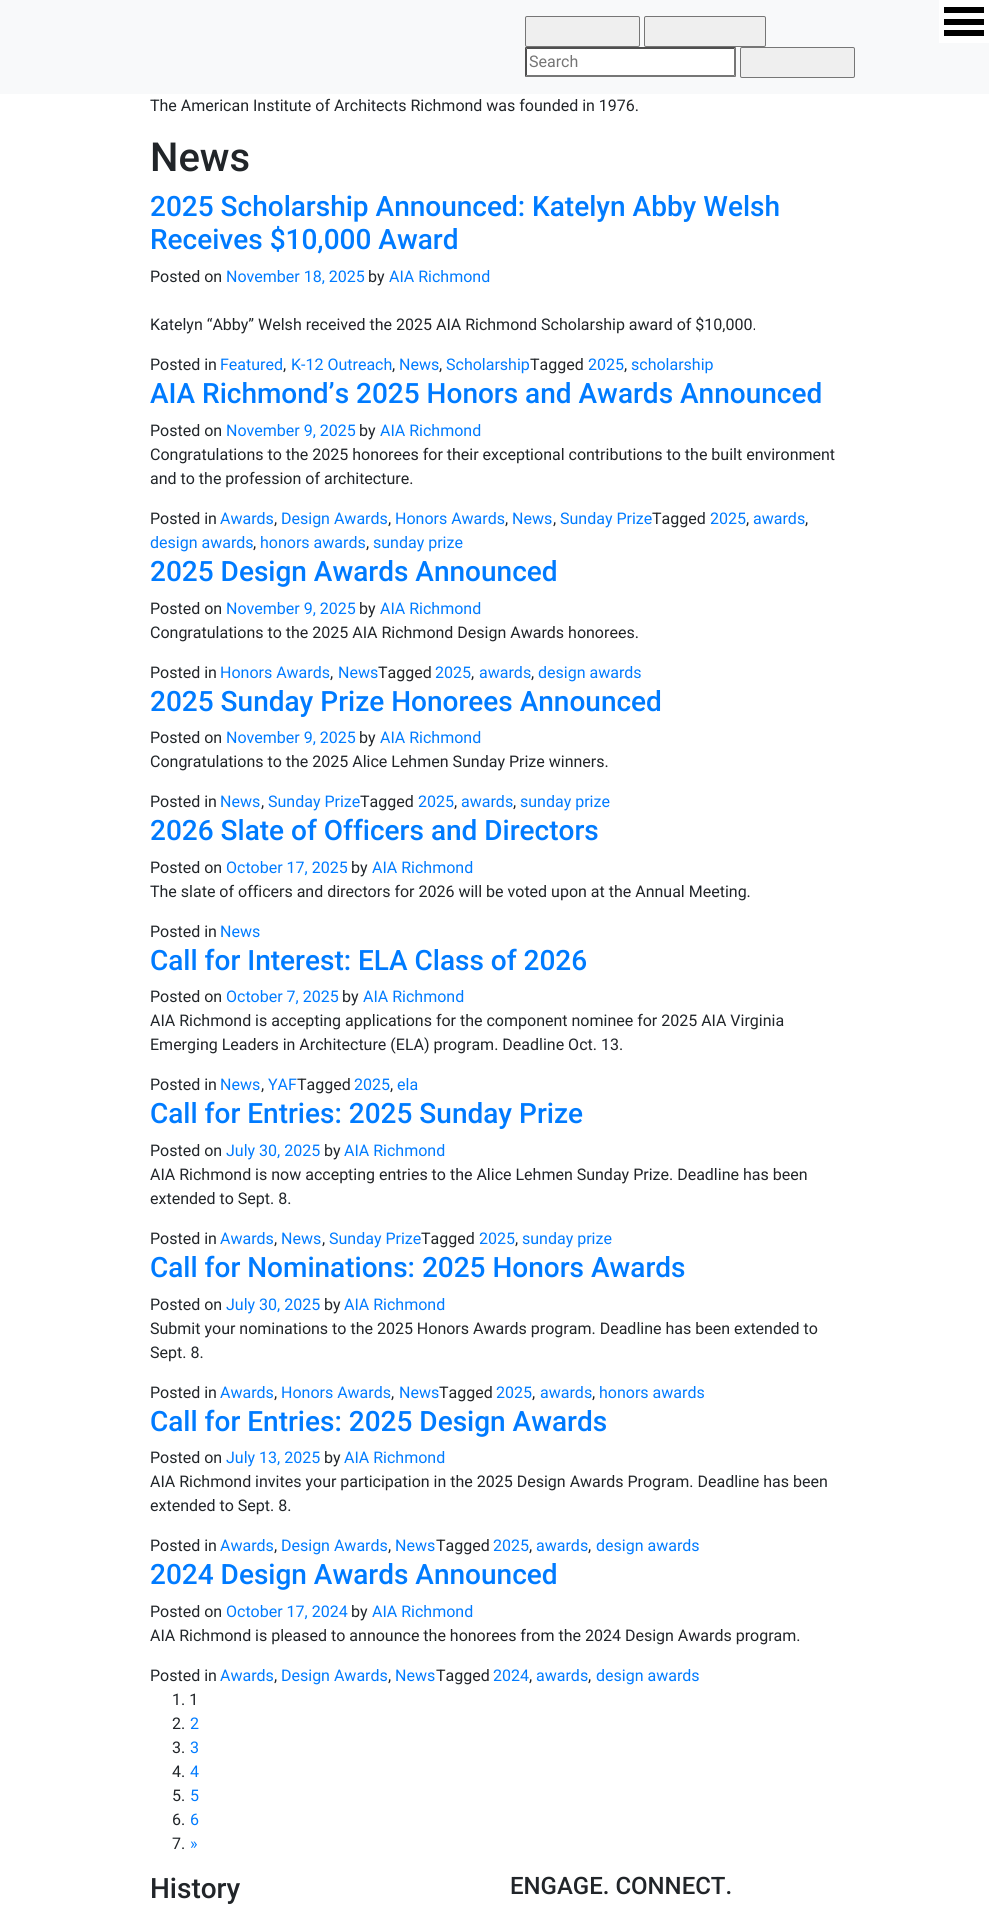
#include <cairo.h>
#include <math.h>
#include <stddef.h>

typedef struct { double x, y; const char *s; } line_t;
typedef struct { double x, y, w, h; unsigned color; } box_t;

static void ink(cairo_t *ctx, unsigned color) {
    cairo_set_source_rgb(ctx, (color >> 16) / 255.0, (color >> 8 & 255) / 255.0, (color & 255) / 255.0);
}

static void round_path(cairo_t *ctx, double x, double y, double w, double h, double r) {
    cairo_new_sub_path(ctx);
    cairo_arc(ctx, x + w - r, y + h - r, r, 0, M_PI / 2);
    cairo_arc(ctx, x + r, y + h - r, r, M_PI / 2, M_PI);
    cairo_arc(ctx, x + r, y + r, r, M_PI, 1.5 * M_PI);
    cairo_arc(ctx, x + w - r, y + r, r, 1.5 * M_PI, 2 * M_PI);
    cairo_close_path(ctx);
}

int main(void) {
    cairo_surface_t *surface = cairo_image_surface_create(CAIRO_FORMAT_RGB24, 989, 1906);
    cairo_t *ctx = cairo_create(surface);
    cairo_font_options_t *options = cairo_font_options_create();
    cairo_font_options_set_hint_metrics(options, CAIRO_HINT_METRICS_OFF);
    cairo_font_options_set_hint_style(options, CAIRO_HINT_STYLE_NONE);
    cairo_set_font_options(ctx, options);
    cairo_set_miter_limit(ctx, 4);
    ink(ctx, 0xFFFFFF);
    cairo_paint(ctx);
    {
        static const box_t items[] = {
            {0, 0, 989, 94, 0xF8F9FA},
            {939, 0, 50, 43, 0xFFFFFF},
            {944, 7, 40, 6, 0x000000},
            {944, 19, 40, 6, 0x000000},
            {944, 30, 40, 6, 0x000000},
        };
        for (size_t i = 0; i < sizeof items / sizeof *items; i++) {
            ink(ctx, items[i].color);
            cairo_rectangle(ctx, items[i].x, items[i].y, items[i].w, items[i].h);
            cairo_fill(ctx);
        }
    }
    ink(ctx, 0xEFEFEF);
    round_path(ctx, 525.5, 16.5, 114, 30, 1.5);
    cairo_fill_preserve(ctx);
    ink(ctx, 0x767676);
    cairo_set_line_width(ctx, 1);
    cairo_stroke(ctx);
    ink(ctx, 0xEFEFEF);
    round_path(ctx, 644.5, 16.5, 121, 30, 1.5);
    cairo_fill_preserve(ctx);
    ink(ctx, 0x767676);
    cairo_stroke(ctx);
    ink(ctx, 0xFFFFFF);
    cairo_rectangle(ctx, 525, 47, 211, 30);
    cairo_fill(ctx);
    ink(ctx, 0x4F4F4F);
    cairo_new_path(ctx);
    cairo_move_to(ctx, 525, 47);
    cairo_line_to(ctx, 736, 47);
    cairo_line_to(ctx, 734, 49);
    cairo_line_to(ctx, 527, 49);
    cairo_close_path(ctx);
    cairo_fill(ctx);
    ink(ctx, 0x767676);
    cairo_new_path(ctx);
    cairo_move_to(ctx, 736, 47);
    cairo_line_to(ctx, 736, 77);
    cairo_line_to(ctx, 734, 75);
    cairo_line_to(ctx, 734, 49);
    cairo_close_path(ctx);
    cairo_fill(ctx);
    cairo_new_path(ctx);
    cairo_move_to(ctx, 736, 77);
    cairo_line_to(ctx, 525, 77);
    cairo_line_to(ctx, 527, 75);
    cairo_line_to(ctx, 734, 75);
    cairo_close_path(ctx);
    cairo_fill(ctx);
    ink(ctx, 0x4F4F4F);
    cairo_new_path(ctx);
    cairo_move_to(ctx, 525, 77);
    cairo_line_to(ctx, 525, 47);
    cairo_line_to(ctx, 527, 49);
    cairo_line_to(ctx, 527, 75);
    cairo_close_path(ctx);
    cairo_fill(ctx);
    cairo_select_font_face(ctx, "Roboto", CAIRO_FONT_SLANT_NORMAL, CAIRO_FONT_WEIGHT_NORMAL);
    cairo_set_font_size(ctx, 16);
    ink(ctx, 0x757575);
    cairo_move_to(ctx, 529, 67);
    cairo_show_text(ctx, "Search");
    ink(ctx, 0xEFEFEF);
    round_path(ctx, 740.5, 47.5, 114, 30, 1.5);
    cairo_fill_preserve(ctx);
    ink(ctx, 0x767676);
    cairo_stroke(ctx);
    ink(ctx, 0x212529);
    cairo_move_to(ctx, 150, 111);
    cairo_show_text(ctx, "The American Institute of Architects Richmond was founded in 1976.");
    cairo_select_font_face(ctx, "Roboto Medium", CAIRO_FONT_SLANT_NORMAL, CAIRO_FONT_WEIGHT_NORMAL);
    cairo_set_font_size(ctx, 40);
    cairo_move_to(ctx, 150, 171);
    cairo_show_text(ctx, "News");
    cairo_set_font_size(ctx, 28);
    ink(ctx, 0x007BFF);
    cairo_move_to(ctx, 150, 216);
    cairo_show_text(ctx, "2025 Scholarship Announced: Katelyn Abby Welsh");
    cairo_move_to(ctx, 150, 249);
    cairo_show_text(ctx, "Receives $10,000 Award");
    cairo_select_font_face(ctx, "Roboto", CAIRO_FONT_SLANT_NORMAL, CAIRO_FONT_WEIGHT_NORMAL);
    cairo_set_font_size(ctx, 16);
    ink(ctx, 0x212529);
    cairo_move_to(ctx, 150, 282);
    cairo_show_text(ctx, "Posted on");
    ink(ctx, 0x007BFF);
    cairo_move_to(ctx, 226, 282);
    cairo_show_text(ctx, "November 18, 2025");
    ink(ctx, 0x212529);
    cairo_move_to(ctx, 368, 282);
    cairo_show_text(ctx, "by");
    ink(ctx, 0x007BFF);
    cairo_move_to(ctx, 389, 282);
    cairo_show_text(ctx, "AIA Richmond");
    ink(ctx, 0x212529);
    cairo_move_to(ctx, 150, 330);
    cairo_show_text(ctx, "Katelyn “Abby” Welsh received the 2025 AIA Richmond Scholarship award of $10,000.");
    cairo_move_to(ctx, 150, 370);
    cairo_show_text(ctx, "Posted in");
    ink(ctx, 0x007BFF);
    cairo_move_to(ctx, 220, 370);
    cairo_show_text(ctx, "Featured");
    ink(ctx, 0x212529);
    cairo_move_to(ctx, 283, 370);
    cairo_show_text(ctx, ",");
    ink(ctx, 0x007BFF);
    cairo_move_to(ctx, 291, 370);
    cairo_show_text(ctx, "K-12 Outreach");
    ink(ctx, 0x212529);
    cairo_move_to(ctx, 392, 370);
    cairo_show_text(ctx, ",");
    ink(ctx, 0x007BFF);
    cairo_move_to(ctx, 399, 370);
    cairo_show_text(ctx, "News");
    ink(ctx, 0x212529);
    cairo_move_to(ctx, 439, 370);
    cairo_show_text(ctx, ",");
    ink(ctx, 0x007BFF);
    cairo_move_to(ctx, 446, 370);
    cairo_show_text(ctx, "Scholarship");
    ink(ctx, 0x212529);
    cairo_move_to(ctx, 530, 370);
    cairo_show_text(ctx, "Tagged");
    ink(ctx, 0x007BFF);
    cairo_move_to(ctx, 588, 370);
    cairo_show_text(ctx, "2025");
    ink(ctx, 0x212529);
    cairo_move_to(ctx, 624, 370);
    cairo_show_text(ctx, ",");
    ink(ctx, 0x007BFF);
    cairo_move_to(ctx, 631, 370);
    cairo_show_text(ctx, "scholarship");
    cairo_select_font_face(ctx, "Roboto Medium", CAIRO_FONT_SLANT_NORMAL, CAIRO_FONT_WEIGHT_NORMAL);
    cairo_set_font_size(ctx, 28);
    cairo_move_to(ctx, 150, 403);
    cairo_show_text(ctx, "AIA Richmond’s 2025 Honors and Awards Announced");
    cairo_select_font_face(ctx, "Roboto", CAIRO_FONT_SLANT_NORMAL, CAIRO_FONT_WEIGHT_NORMAL);
    cairo_set_font_size(ctx, 16);
    ink(ctx, 0x212529);
    cairo_move_to(ctx, 150, 436);
    cairo_show_text(ctx, "Posted on");
    ink(ctx, 0x007BFF);
    cairo_move_to(ctx, 226, 436);
    cairo_show_text(ctx, "November 9, 2025");
    ink(ctx, 0x212529);
    cairo_move_to(ctx, 359, 436);
    cairo_show_text(ctx, "by");
    ink(ctx, 0x007BFF);
    cairo_move_to(ctx, 380, 436);
    cairo_show_text(ctx, "AIA Richmond");
    ink(ctx, 0x212529);
    {
        static const line_t items[] = {
            {150, 460, "Congratulations to the 2025 honorees for their exceptional contributions to the built environment"},
            {150, 484, "and to the profession of architecture."},
            {150, 524, "Posted in"},
        };
        for (size_t i = 0; i < sizeof items / sizeof *items; i++) {
            cairo_move_to(ctx, items[i].x, items[i].y);
            cairo_show_text(ctx, items[i].s);
        }
    }
    ink(ctx, 0x007BFF);
    cairo_move_to(ctx, 220, 524);
    cairo_show_text(ctx, "Awards");
    ink(ctx, 0x212529);
    cairo_move_to(ctx, 274, 524);
    cairo_show_text(ctx, ",");
    ink(ctx, 0x007BFF);
    cairo_move_to(ctx, 281, 524);
    cairo_show_text(ctx, "Design Awards");
    ink(ctx, 0x212529);
    cairo_move_to(ctx, 388, 524);
    cairo_show_text(ctx, ",");
    ink(ctx, 0x007BFF);
    cairo_move_to(ctx, 395, 524);
    cairo_show_text(ctx, "Honors Awards");
    ink(ctx, 0x212529);
    cairo_move_to(ctx, 505, 524);
    cairo_show_text(ctx, ",");
    ink(ctx, 0x007BFF);
    cairo_move_to(ctx, 512, 524);
    cairo_show_text(ctx, "News");
    ink(ctx, 0x212529);
    cairo_move_to(ctx, 553, 524);
    cairo_show_text(ctx, ",");
    ink(ctx, 0x007BFF);
    cairo_move_to(ctx, 560, 524);
    cairo_show_text(ctx, "Sunday Prize");
    ink(ctx, 0x212529);
    cairo_move_to(ctx, 652, 524);
    cairo_show_text(ctx, "Tagged");
    ink(ctx, 0x007BFF);
    cairo_move_to(ctx, 710, 524);
    cairo_show_text(ctx, "2025");
    ink(ctx, 0x212529);
    cairo_move_to(ctx, 746, 524);
    cairo_show_text(ctx, ",");
    ink(ctx, 0x007BFF);
    cairo_move_to(ctx, 753, 524);
    cairo_show_text(ctx, "awards");
    ink(ctx, 0x212529);
    cairo_move_to(ctx, 805, 524);
    cairo_show_text(ctx, ",");
    ink(ctx, 0x007BFF);
    cairo_move_to(ctx, 150, 548);
    cairo_show_text(ctx, "design awards");
    ink(ctx, 0x212529);
    cairo_move_to(ctx, 253, 548);
    cairo_show_text(ctx, ",");
    ink(ctx, 0x007BFF);
    cairo_move_to(ctx, 260, 548);
    cairo_show_text(ctx, "honors awards");
    ink(ctx, 0x212529);
    cairo_move_to(ctx, 366, 548);
    cairo_show_text(ctx, ",");
    ink(ctx, 0x007BFF);
    cairo_move_to(ctx, 373, 548);
    cairo_show_text(ctx, "sunday prize");
    cairo_select_font_face(ctx, "Roboto Medium", CAIRO_FONT_SLANT_NORMAL, CAIRO_FONT_WEIGHT_NORMAL);
    cairo_set_font_size(ctx, 28);
    cairo_move_to(ctx, 150, 581);
    cairo_show_text(ctx, "2025 Design Awards Announced");
    cairo_select_font_face(ctx, "Roboto", CAIRO_FONT_SLANT_NORMAL, CAIRO_FONT_WEIGHT_NORMAL);
    cairo_set_font_size(ctx, 16);
    ink(ctx, 0x212529);
    cairo_move_to(ctx, 150, 614);
    cairo_show_text(ctx, "Posted on");
    ink(ctx, 0x007BFF);
    cairo_move_to(ctx, 226, 614);
    cairo_show_text(ctx, "November 9, 2025");
    ink(ctx, 0x212529);
    cairo_move_to(ctx, 359, 614);
    cairo_show_text(ctx, "by");
    ink(ctx, 0x007BFF);
    cairo_move_to(ctx, 380, 614);
    cairo_show_text(ctx, "AIA Richmond");
    ink(ctx, 0x212529);
    cairo_move_to(ctx, 150, 638);
    cairo_show_text(ctx, "Congratulations to the 2025 AIA Richmond Design Awards honorees.");
    cairo_move_to(ctx, 150, 678);
    cairo_show_text(ctx, "Posted in");
    ink(ctx, 0x007BFF);
    cairo_move_to(ctx, 220, 678);
    cairo_show_text(ctx, "Honors Awards");
    ink(ctx, 0x212529);
    cairo_move_to(ctx, 330, 678);
    cairo_show_text(ctx, ",");
    ink(ctx, 0x007BFF);
    cairo_move_to(ctx, 338, 678);
    cairo_show_text(ctx, "News");
    ink(ctx, 0x212529);
    cairo_move_to(ctx, 378, 678);
    cairo_show_text(ctx, "Tagged");
    ink(ctx, 0x007BFF);
    cairo_move_to(ctx, 435, 678);
    cairo_show_text(ctx, "2025");
    ink(ctx, 0x212529);
    cairo_move_to(ctx, 471, 678);
    cairo_show_text(ctx, ",");
    ink(ctx, 0x007BFF);
    cairo_move_to(ctx, 479, 678);
    cairo_show_text(ctx, "awards");
    ink(ctx, 0x212529);
    cairo_move_to(ctx, 531, 678);
    cairo_show_text(ctx, ",");
    ink(ctx, 0x007BFF);
    cairo_move_to(ctx, 538, 678);
    cairo_show_text(ctx, "design awards");
    cairo_select_font_face(ctx, "Roboto Medium", CAIRO_FONT_SLANT_NORMAL, CAIRO_FONT_WEIGHT_NORMAL);
    cairo_set_font_size(ctx, 28);
    cairo_move_to(ctx, 150, 711);
    cairo_show_text(ctx, "2025 Sunday Prize Honorees Announced");
    cairo_select_font_face(ctx, "Roboto", CAIRO_FONT_SLANT_NORMAL, CAIRO_FONT_WEIGHT_NORMAL);
    cairo_set_font_size(ctx, 16);
    ink(ctx, 0x212529);
    cairo_move_to(ctx, 150, 743);
    cairo_show_text(ctx, "Posted on");
    ink(ctx, 0x007BFF);
    cairo_move_to(ctx, 226, 743);
    cairo_show_text(ctx, "November 9, 2025");
    ink(ctx, 0x212529);
    cairo_move_to(ctx, 359, 743);
    cairo_show_text(ctx, "by");
    ink(ctx, 0x007BFF);
    cairo_move_to(ctx, 380, 743);
    cairo_show_text(ctx, "AIA Richmond");
    ink(ctx, 0x212529);
    cairo_move_to(ctx, 150, 767);
    cairo_show_text(ctx, "Congratulations to the 2025 Alice Lehmen Sunday Prize winners.");
    cairo_move_to(ctx, 150, 807);
    cairo_show_text(ctx, "Posted in");
    ink(ctx, 0x007BFF);
    cairo_move_to(ctx, 220, 807);
    cairo_show_text(ctx, "News");
    ink(ctx, 0x212529);
    cairo_move_to(ctx, 261, 807);
    cairo_show_text(ctx, ",");
    ink(ctx, 0x007BFF);
    cairo_move_to(ctx, 268, 807);
    cairo_show_text(ctx, "Sunday Prize");
    ink(ctx, 0x212529);
    cairo_move_to(ctx, 360, 807);
    cairo_show_text(ctx, "Tagged");
    ink(ctx, 0x007BFF);
    cairo_move_to(ctx, 418, 807);
    cairo_show_text(ctx, "2025");
    ink(ctx, 0x212529);
    cairo_move_to(ctx, 454, 807);
    cairo_show_text(ctx, ",");
    ink(ctx, 0x007BFF);
    cairo_move_to(ctx, 461, 807);
    cairo_show_text(ctx, "awards");
    ink(ctx, 0x212529);
    cairo_move_to(ctx, 513, 807);
    cairo_show_text(ctx, ",");
    ink(ctx, 0x007BFF);
    cairo_move_to(ctx, 520, 807);
    cairo_show_text(ctx, "sunday prize");
    cairo_select_font_face(ctx, "Roboto Medium", CAIRO_FONT_SLANT_NORMAL, CAIRO_FONT_WEIGHT_NORMAL);
    cairo_set_font_size(ctx, 28);
    cairo_move_to(ctx, 150, 840);
    cairo_show_text(ctx, "2026 Slate of Officers and Directors");
    cairo_select_font_face(ctx, "Roboto", CAIRO_FONT_SLANT_NORMAL, CAIRO_FONT_WEIGHT_NORMAL);
    cairo_set_font_size(ctx, 16);
    ink(ctx, 0x212529);
    cairo_move_to(ctx, 150, 873);
    cairo_show_text(ctx, "Posted on");
    ink(ctx, 0x007BFF);
    cairo_move_to(ctx, 226, 873);
    cairo_show_text(ctx, "October 17, 2025");
    ink(ctx, 0x212529);
    cairo_move_to(ctx, 351, 873);
    cairo_show_text(ctx, "by");
    ink(ctx, 0x007BFF);
    cairo_move_to(ctx, 372, 873);
    cairo_show_text(ctx, "AIA Richmond");
    ink(ctx, 0x212529);
    cairo_move_to(ctx, 150, 897);
    cairo_show_text(ctx, "The slate of officers and directors for 2026 will be voted upon at the Annual Meeting.");
    cairo_move_to(ctx, 150, 937);
    cairo_show_text(ctx, "Posted in");
    ink(ctx, 0x007BFF);
    cairo_move_to(ctx, 220, 937);
    cairo_show_text(ctx, "News");
    cairo_select_font_face(ctx, "Roboto Medium", CAIRO_FONT_SLANT_NORMAL, CAIRO_FONT_WEIGHT_NORMAL);
    cairo_set_font_size(ctx, 28);
    cairo_move_to(ctx, 150, 970);
    cairo_show_text(ctx, "Call for Interest: ELA Class of 2026");
    cairo_select_font_face(ctx, "Roboto", CAIRO_FONT_SLANT_NORMAL, CAIRO_FONT_WEIGHT_NORMAL);
    cairo_set_font_size(ctx, 16);
    ink(ctx, 0x212529);
    cairo_move_to(ctx, 150, 1002);
    cairo_show_text(ctx, "Posted on");
    ink(ctx, 0x007BFF);
    cairo_move_to(ctx, 226, 1002);
    cairo_show_text(ctx, "October 7, 2025");
    ink(ctx, 0x212529);
    cairo_move_to(ctx, 342, 1002);
    cairo_show_text(ctx, "by");
    ink(ctx, 0x007BFF);
    cairo_move_to(ctx, 363, 1002);
    cairo_show_text(ctx, "AIA Richmond");
    ink(ctx, 0x212529);
    {
        static const line_t items[] = {
            {150, 1026, "AIA Richmond is accepting applications for the component nominee for 2025 AIA Virginia"},
            {150, 1050, "Emerging Leaders in Architecture (ELA) program. Deadline Oct. 13."},
            {150, 1090, "Posted in"},
        };
        for (size_t i = 0; i < sizeof items / sizeof *items; i++) {
            cairo_move_to(ctx, items[i].x, items[i].y);
            cairo_show_text(ctx, items[i].s);
        }
    }
    ink(ctx, 0x007BFF);
    cairo_move_to(ctx, 220, 1090);
    cairo_show_text(ctx, "News");
    ink(ctx, 0x212529);
    cairo_move_to(ctx, 261, 1090);
    cairo_show_text(ctx, ",");
    ink(ctx, 0x007BFF);
    cairo_move_to(ctx, 268, 1090);
    cairo_show_text(ctx, "YAF");
    ink(ctx, 0x212529);
    cairo_move_to(ctx, 297, 1090);
    cairo_show_text(ctx, "Tagged");
    ink(ctx, 0x007BFF);
    cairo_move_to(ctx, 354, 1090);
    cairo_show_text(ctx, "2025");
    ink(ctx, 0x212529);
    cairo_move_to(ctx, 390, 1090);
    cairo_show_text(ctx, ",");
    ink(ctx, 0x007BFF);
    cairo_move_to(ctx, 397, 1090);
    cairo_show_text(ctx, "ela");
    cairo_select_font_face(ctx, "Roboto Medium", CAIRO_FONT_SLANT_NORMAL, CAIRO_FONT_WEIGHT_NORMAL);
    cairo_set_font_size(ctx, 28);
    cairo_move_to(ctx, 150, 1123);
    cairo_show_text(ctx, "Call for Entries: 2025 Sunday Prize");
    cairo_select_font_face(ctx, "Roboto", CAIRO_FONT_SLANT_NORMAL, CAIRO_FONT_WEIGHT_NORMAL);
    cairo_set_font_size(ctx, 16);
    ink(ctx, 0x212529);
    cairo_move_to(ctx, 150, 1156);
    cairo_show_text(ctx, "Posted on");
    ink(ctx, 0x007BFF);
    cairo_move_to(ctx, 226, 1156);
    cairo_show_text(ctx, "July 30, 2025");
    ink(ctx, 0x212529);
    cairo_move_to(ctx, 324, 1156);
    cairo_show_text(ctx, "by");
    ink(ctx, 0x007BFF);
    cairo_move_to(ctx, 344, 1156);
    cairo_show_text(ctx, "AIA Richmond");
    ink(ctx, 0x212529);
    {
        static const line_t items[] = {
            {150, 1180, "AIA Richmond is now accepting entries to the Alice Lehmen Sunday Prize. Deadline has been"},
            {150, 1204, "extended to Sept. 8."},
            {150, 1244, "Posted in"},
        };
        for (size_t i = 0; i < sizeof items / sizeof *items; i++) {
            cairo_move_to(ctx, items[i].x, items[i].y);
            cairo_show_text(ctx, items[i].s);
        }
    }
    ink(ctx, 0x007BFF);
    cairo_move_to(ctx, 220, 1244);
    cairo_show_text(ctx, "Awards");
    ink(ctx, 0x212529);
    cairo_move_to(ctx, 274, 1244);
    cairo_show_text(ctx, ",");
    ink(ctx, 0x007BFF);
    cairo_move_to(ctx, 281, 1244);
    cairo_show_text(ctx, "News");
    ink(ctx, 0x212529);
    cairo_move_to(ctx, 322, 1244);
    cairo_show_text(ctx, ",");
    ink(ctx, 0x007BFF);
    cairo_move_to(ctx, 329, 1244);
    cairo_show_text(ctx, "Sunday Prize");
    ink(ctx, 0x212529);
    cairo_move_to(ctx, 421, 1244);
    cairo_show_text(ctx, "Tagged");
    ink(ctx, 0x007BFF);
    cairo_move_to(ctx, 479, 1244);
    cairo_show_text(ctx, "2025");
    ink(ctx, 0x212529);
    cairo_move_to(ctx, 515, 1244);
    cairo_show_text(ctx, ",");
    ink(ctx, 0x007BFF);
    cairo_move_to(ctx, 522, 1244);
    cairo_show_text(ctx, "sunday prize");
    cairo_select_font_face(ctx, "Roboto Medium", CAIRO_FONT_SLANT_NORMAL, CAIRO_FONT_WEIGHT_NORMAL);
    cairo_set_font_size(ctx, 28);
    cairo_move_to(ctx, 150, 1277);
    cairo_show_text(ctx, "Call for Nominations: 2025 Honors Awards");
    cairo_select_font_face(ctx, "Roboto", CAIRO_FONT_SLANT_NORMAL, CAIRO_FONT_WEIGHT_NORMAL);
    cairo_set_font_size(ctx, 16);
    ink(ctx, 0x212529);
    cairo_move_to(ctx, 150, 1310);
    cairo_show_text(ctx, "Posted on");
    ink(ctx, 0x007BFF);
    cairo_move_to(ctx, 226, 1310);
    cairo_show_text(ctx, "July 30, 2025");
    ink(ctx, 0x212529);
    cairo_move_to(ctx, 324, 1310);
    cairo_show_text(ctx, "by");
    ink(ctx, 0x007BFF);
    cairo_move_to(ctx, 344, 1310);
    cairo_show_text(ctx, "AIA Richmond");
    ink(ctx, 0x212529);
    {
        static const line_t items[] = {
            {150, 1334, "Submit your nominations to the 2025 Honors Awards program. Deadline has been extended to"},
            {150, 1358, "Sept. 8."},
            {150, 1398, "Posted in"},
        };
        for (size_t i = 0; i < sizeof items / sizeof *items; i++) {
            cairo_move_to(ctx, items[i].x, items[i].y);
            cairo_show_text(ctx, items[i].s);
        }
    }
    ink(ctx, 0x007BFF);
    cairo_move_to(ctx, 220, 1398);
    cairo_show_text(ctx, "Awards");
    ink(ctx, 0x212529);
    cairo_move_to(ctx, 274, 1398);
    cairo_show_text(ctx, ",");
    ink(ctx, 0x007BFF);
    cairo_move_to(ctx, 281, 1398);
    cairo_show_text(ctx, "Honors Awards");
    ink(ctx, 0x212529);
    cairo_move_to(ctx, 391, 1398);
    cairo_show_text(ctx, ",");
    ink(ctx, 0x007BFF);
    cairo_move_to(ctx, 399, 1398);
    cairo_show_text(ctx, "News");
    ink(ctx, 0x212529);
    cairo_move_to(ctx, 439, 1398);
    cairo_show_text(ctx, "Tagged");
    ink(ctx, 0x007BFF);
    cairo_move_to(ctx, 496, 1398);
    cairo_show_text(ctx, "2025");
    ink(ctx, 0x212529);
    cairo_move_to(ctx, 532, 1398);
    cairo_show_text(ctx, ",");
    ink(ctx, 0x007BFF);
    cairo_move_to(ctx, 540, 1398);
    cairo_show_text(ctx, "awards");
    ink(ctx, 0x212529);
    cairo_move_to(ctx, 592, 1398);
    cairo_show_text(ctx, ",");
    ink(ctx, 0x007BFF);
    cairo_move_to(ctx, 599, 1398);
    cairo_show_text(ctx, "honors awards");
    cairo_select_font_face(ctx, "Roboto Medium", CAIRO_FONT_SLANT_NORMAL, CAIRO_FONT_WEIGHT_NORMAL);
    cairo_set_font_size(ctx, 28);
    cairo_move_to(ctx, 150, 1431);
    cairo_show_text(ctx, "Call for Entries: 2025 Design Awards");
    cairo_select_font_face(ctx, "Roboto", CAIRO_FONT_SLANT_NORMAL, CAIRO_FONT_WEIGHT_NORMAL);
    cairo_set_font_size(ctx, 16);
    ink(ctx, 0x212529);
    cairo_move_to(ctx, 150, 1463);
    cairo_show_text(ctx, "Posted on");
    ink(ctx, 0x007BFF);
    cairo_move_to(ctx, 226, 1463);
    cairo_show_text(ctx, "July 13, 2025");
    ink(ctx, 0x212529);
    cairo_move_to(ctx, 324, 1463);
    cairo_show_text(ctx, "by");
    ink(ctx, 0x007BFF);
    cairo_move_to(ctx, 344, 1463);
    cairo_show_text(ctx, "AIA Richmond");
    ink(ctx, 0x212529);
    {
        static const line_t items[] = {
            {150, 1487, "AIA Richmond invites your participation in the 2025 Design Awards Program. Deadline has been"},
            {150, 1511, "extended to Sept. 8."},
            {150, 1551, "Posted in"},
        };
        for (size_t i = 0; i < sizeof items / sizeof *items; i++) {
            cairo_move_to(ctx, items[i].x, items[i].y);
            cairo_show_text(ctx, items[i].s);
        }
    }
    ink(ctx, 0x007BFF);
    cairo_move_to(ctx, 220, 1551);
    cairo_show_text(ctx, "Awards");
    ink(ctx, 0x212529);
    cairo_move_to(ctx, 274, 1551);
    cairo_show_text(ctx, ",");
    ink(ctx, 0x007BFF);
    cairo_move_to(ctx, 281, 1551);
    cairo_show_text(ctx, "Design Awards");
    ink(ctx, 0x212529);
    cairo_move_to(ctx, 388, 1551);
    cairo_show_text(ctx, ",");
    ink(ctx, 0x007BFF);
    cairo_move_to(ctx, 395, 1551);
    cairo_show_text(ctx, "News");
    ink(ctx, 0x212529);
    cairo_move_to(ctx, 436, 1551);
    cairo_show_text(ctx, "Tagged");
    ink(ctx, 0x007BFF);
    cairo_move_to(ctx, 493, 1551);
    cairo_show_text(ctx, "2025");
    ink(ctx, 0x212529);
    cairo_move_to(ctx, 529, 1551);
    cairo_show_text(ctx, ",");
    ink(ctx, 0x007BFF);
    cairo_move_to(ctx, 536, 1551);
    cairo_show_text(ctx, "awards");
    ink(ctx, 0x212529);
    cairo_move_to(ctx, 588, 1551);
    cairo_show_text(ctx, ",");
    ink(ctx, 0x007BFF);
    cairo_move_to(ctx, 596, 1551);
    cairo_show_text(ctx, "design awards");
    cairo_select_font_face(ctx, "Roboto Medium", CAIRO_FONT_SLANT_NORMAL, CAIRO_FONT_WEIGHT_NORMAL);
    cairo_set_font_size(ctx, 28);
    cairo_move_to(ctx, 150, 1584);
    cairo_show_text(ctx, "2024 Design Awards Announced");
    cairo_select_font_face(ctx, "Roboto", CAIRO_FONT_SLANT_NORMAL, CAIRO_FONT_WEIGHT_NORMAL);
    cairo_set_font_size(ctx, 16);
    ink(ctx, 0x212529);
    cairo_move_to(ctx, 150, 1617);
    cairo_show_text(ctx, "Posted on");
    ink(ctx, 0x007BFF);
    cairo_move_to(ctx, 226, 1617);
    cairo_show_text(ctx, "October 17, 2024");
    ink(ctx, 0x212529);
    cairo_move_to(ctx, 351, 1617);
    cairo_show_text(ctx, "by");
    ink(ctx, 0x007BFF);
    cairo_move_to(ctx, 372, 1617);
    cairo_show_text(ctx, "AIA Richmond");
    ink(ctx, 0x212529);
    cairo_move_to(ctx, 150, 1641);
    cairo_show_text(ctx, "AIA Richmond is pleased to announce the honorees from the 2024 Design Awards program.");
    cairo_move_to(ctx, 150, 1681);
    cairo_show_text(ctx, "Posted in");
    ink(ctx, 0x007BFF);
    cairo_move_to(ctx, 220, 1681);
    cairo_show_text(ctx, "Awards");
    ink(ctx, 0x212529);
    cairo_move_to(ctx, 274, 1681);
    cairo_show_text(ctx, ",");
    ink(ctx, 0x007BFF);
    cairo_move_to(ctx, 281, 1681);
    cairo_show_text(ctx, "Design Awards");
    ink(ctx, 0x212529);
    cairo_move_to(ctx, 388, 1681);
    cairo_show_text(ctx, ",");
    ink(ctx, 0x007BFF);
    cairo_move_to(ctx, 395, 1681);
    cairo_show_text(ctx, "News");
    ink(ctx, 0x212529);
    cairo_move_to(ctx, 436, 1681);
    cairo_show_text(ctx, "Tagged");
    ink(ctx, 0x007BFF);
    cairo_move_to(ctx, 493, 1681);
    cairo_show_text(ctx, "2024");
    ink(ctx, 0x212529);
    cairo_move_to(ctx, 529, 1681);
    cairo_show_text(ctx, ",");
    ink(ctx, 0x007BFF);
    cairo_move_to(ctx, 536, 1681);
    cairo_show_text(ctx, "awards");
    ink(ctx, 0x212529);
    cairo_move_to(ctx, 588, 1681);
    cairo_show_text(ctx, ",");
    ink(ctx, 0x007BFF);
    cairo_move_to(ctx, 596, 1681);
    cairo_show_text(ctx, "design awards");
    ink(ctx, 0x212529);
    cairo_move_to(ctx, 172, 1705);
    cairo_show_text(ctx, "1. 1");
    cairo_move_to(ctx, 172, 1729);
    cairo_show_text(ctx, "2.");
    ink(ctx, 0x007BFF);
    cairo_move_to(ctx, 190, 1729);
    cairo_show_text(ctx, "2");
    ink(ctx, 0x212529);
    cairo_move_to(ctx, 172, 1753);
    cairo_show_text(ctx, "3.");
    ink(ctx, 0x007BFF);
    cairo_move_to(ctx, 190, 1753);
    cairo_show_text(ctx, "3");
    ink(ctx, 0x212529);
    cairo_move_to(ctx, 172, 1777);
    cairo_show_text(ctx, "4.");
    ink(ctx, 0x007BFF);
    cairo_move_to(ctx, 190, 1777);
    cairo_show_text(ctx, "4");
    ink(ctx, 0x212529);
    cairo_move_to(ctx, 172, 1801);
    cairo_show_text(ctx, "5.");
    ink(ctx, 0x007BFF);
    cairo_move_to(ctx, 190, 1801);
    cairo_show_text(ctx, "5");
    ink(ctx, 0x212529);
    cairo_move_to(ctx, 172, 1825);
    cairo_show_text(ctx, "6.");
    ink(ctx, 0x007BFF);
    cairo_move_to(ctx, 190, 1825);
    cairo_show_text(ctx, "6");
    ink(ctx, 0x212529);
    cairo_move_to(ctx, 172, 1849);
    cairo_show_text(ctx, "7.");
    ink(ctx, 0x007BFF);
    cairo_move_to(ctx, 190, 1849);
    cairo_show_text(ctx, "»");
    cairo_select_font_face(ctx, "Roboto Medium", CAIRO_FONT_SLANT_NORMAL, CAIRO_FONT_WEIGHT_NORMAL);
    cairo_set_font_size(ctx, 28);
    ink(ctx, 0x212529);
    cairo_move_to(ctx, 150, 1898);
    cairo_show_text(ctx, "History");
    cairo_set_font_size(ctx, 24);
    cairo_move_to(ctx, 510, 1894);
    cairo_show_text(ctx, "ENGAGE. CONNECT.");
    cairo_surface_write_to_png(surface, "image.png");
    cairo_font_options_destroy(options);
    cairo_destroy(ctx);
    cairo_surface_destroy(surface);
    return 0;
}
